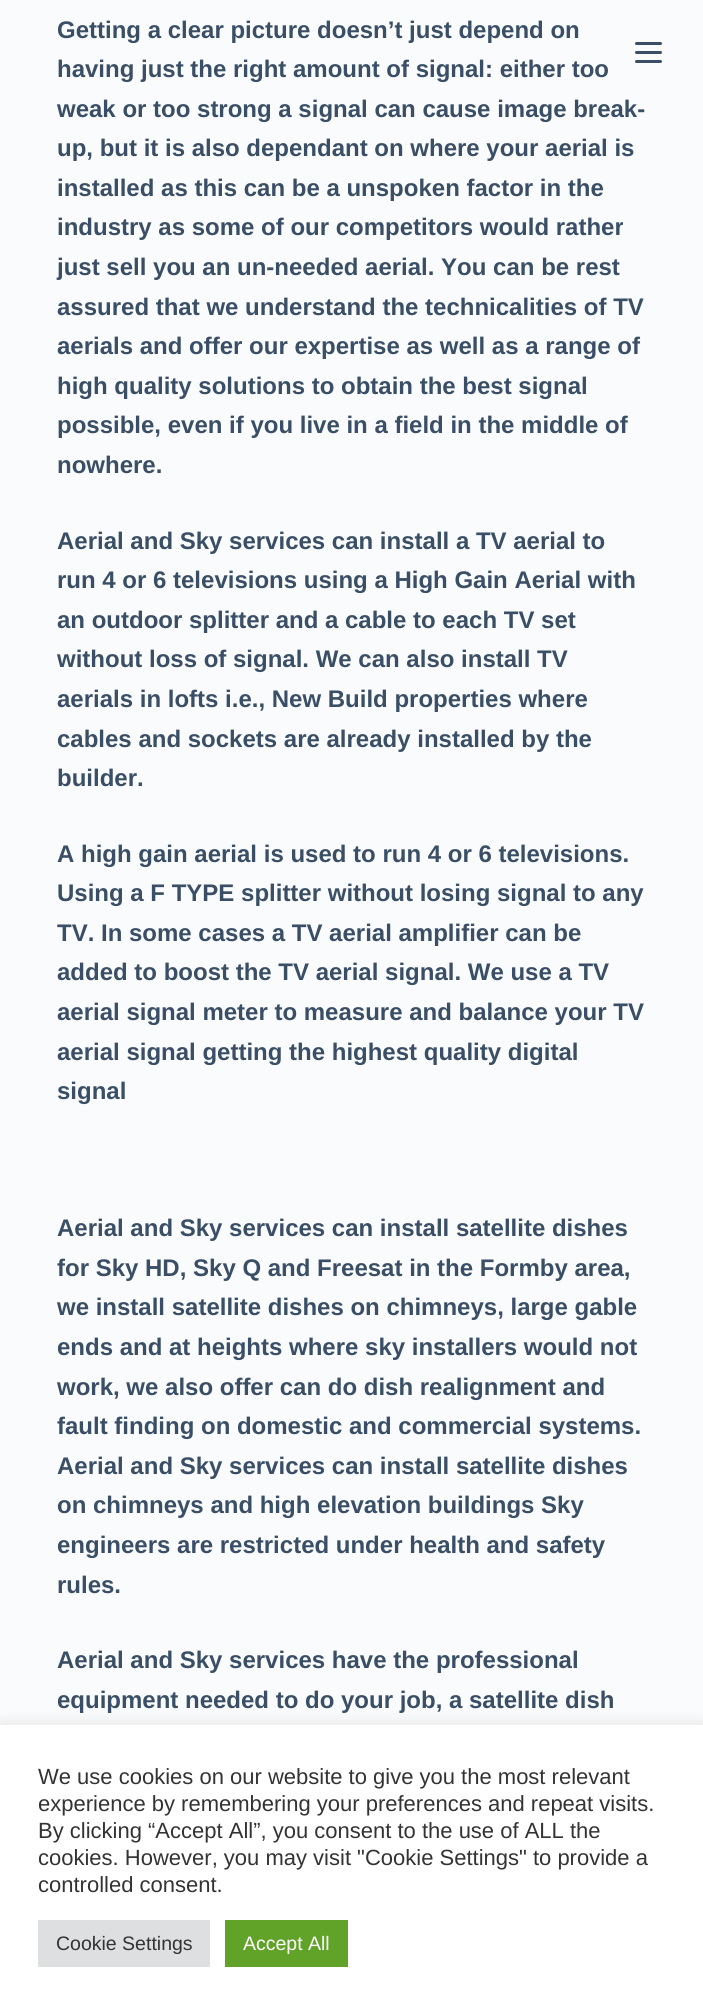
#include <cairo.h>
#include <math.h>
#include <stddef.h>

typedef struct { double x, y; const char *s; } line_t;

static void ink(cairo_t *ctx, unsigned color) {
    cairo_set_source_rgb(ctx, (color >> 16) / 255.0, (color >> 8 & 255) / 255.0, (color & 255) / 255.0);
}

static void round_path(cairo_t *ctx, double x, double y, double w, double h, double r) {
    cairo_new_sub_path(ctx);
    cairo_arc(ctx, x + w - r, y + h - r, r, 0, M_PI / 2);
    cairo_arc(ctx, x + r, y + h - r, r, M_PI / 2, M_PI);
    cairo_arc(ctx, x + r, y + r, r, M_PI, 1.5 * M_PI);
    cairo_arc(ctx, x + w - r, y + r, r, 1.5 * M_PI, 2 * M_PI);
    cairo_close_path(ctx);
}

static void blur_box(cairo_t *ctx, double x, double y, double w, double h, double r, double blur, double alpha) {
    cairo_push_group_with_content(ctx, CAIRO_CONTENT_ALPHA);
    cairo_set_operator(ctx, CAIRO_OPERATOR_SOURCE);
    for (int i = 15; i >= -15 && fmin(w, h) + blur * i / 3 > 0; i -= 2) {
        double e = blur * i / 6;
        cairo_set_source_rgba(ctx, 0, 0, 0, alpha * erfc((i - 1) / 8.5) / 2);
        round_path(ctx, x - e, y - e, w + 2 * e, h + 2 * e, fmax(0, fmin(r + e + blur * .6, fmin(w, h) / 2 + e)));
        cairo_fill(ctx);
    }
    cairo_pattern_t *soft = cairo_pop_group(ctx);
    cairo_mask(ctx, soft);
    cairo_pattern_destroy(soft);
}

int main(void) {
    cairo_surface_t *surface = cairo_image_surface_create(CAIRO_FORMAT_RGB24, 703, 2011);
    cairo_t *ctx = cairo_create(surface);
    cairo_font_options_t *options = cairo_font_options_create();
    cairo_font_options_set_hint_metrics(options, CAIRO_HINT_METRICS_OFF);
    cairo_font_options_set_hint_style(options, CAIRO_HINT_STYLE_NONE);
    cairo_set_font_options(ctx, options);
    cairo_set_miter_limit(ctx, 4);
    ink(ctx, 0xFAFBFC);
    cairo_paint(ctx);
    cairo_select_font_face(ctx, "Liberation Sans", CAIRO_FONT_SLANT_NORMAL, CAIRO_FONT_WEIGHT_BOLD);
    cairo_set_font_size(ctx, 24);
    ink(ctx, 0x3A4F66);
    {
        static const line_t items[] = {
            {57, 38, "Getting a clear picture doesn’t just depend on"},
            {57, 77, "having just the right amount of signal: either too"},
            {57, 117, "weak or too strong a signal can cause image break-"},
            {57, 156, "up, but it is also dependant on where your aerial is"},
            {57, 196, "installed as this can be a unspoken factor in the"},
            {57, 235, "industry as some of our competitors would rather"},
            {57, 275, "just sell you an un-needed aerial. You can be rest"},
            {57, 315, "assured that we understand the technicalities of TV"},
            {57, 354, "aerials and offer our expertise as well as a range of"},
            {57, 394, "high quality solutions to obtain the best signal"},
            {57, 433, "possible, even if you live in a field in the middle of"},
            {57, 473, "nowhere."},
            {57, 549, "Aerial and Sky services can install a TV aerial to"},
            {57, 588, "run 4 or 6 televisions using a High Gain Aerial with"},
            {57, 628, "an outdoor splitter and a cable to each TV set"},
            {57, 667, "without loss of signal. We can also install TV"},
            {57, 707, "aerials in lofts i.e., New Build properties where"},
            {57, 747, "cables and sockets are already installed by the"},
            {57, 786, "builder."},
            {57, 862, "A high gain aerial is used to run 4 or 6 televisions."},
            {57, 901, "Using a F TYPE splitter without losing signal to any"},
            {57, 941, "TV. In some cases a TV aerial amplifier can be"},
            {57, 980, "added to boost the TV aerial signal. We use a TV"},
            {57, 1020, "aerial signal meter to measure and balance your TV"},
            {57, 1060, "aerial signal getting the highest quality digital"},
            {57, 1099, "signal"},
            {57, 1236, "Aerial and Sky services can install satellite dishes"},
            {57, 1276, "for Sky HD, Sky Q and Freesat in the Formby area,"},
            {57, 1315, "we install satellite dishes on chimneys, large gable"},
            {57, 1355, "ends and at heights where sky installers would not"},
            {57, 1395, "work, we also offer can do dish realignment and"},
            {57, 1434, "fault finding on domestic and commercial systems."},
            {57, 1474, "Aerial and Sky services can install satellite dishes"},
            {57, 1513, "on chimneys and high elevation buildings Sky"},
            {57, 1553, "engineers are restricted under health and safety"},
            {57, 1593, "rules."},
            {57, 1668, "Aerial and Sky services have the professional"},
            {57, 1708, "equipment needed to do your job, a satellite dish"},
        };
        for (size_t i = 0; i < sizeof items / sizeof *items; i++) {
            cairo_move_to(ctx, items[i].x, items[i].y);
            cairo_show_text(ctx, items[i].s);
        }
    }
    round_path(ctx, 635, 42, 27, 3, 1.5);
    cairo_fill(ctx);
    round_path(ctx, 635, 51, 27, 3, 1.5);
    cairo_fill(ctx);
    round_path(ctx, 635, 60, 27, 3, 1.5);
    cairo_fill(ctx);
    ink(ctx, 0xACABAB);
    blur_box(ctx, 0, 1724, 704, 286, 0, 7.5, 0.3);
    ink(ctx, 0xFFFFFF);
    cairo_rectangle(ctx, 0, 1725, 703, 286);
    cairo_fill(ctx);
    cairo_select_font_face(ctx, "Liberation Sans", CAIRO_FONT_SLANT_NORMAL, CAIRO_FONT_WEIGHT_NORMAL);
    cairo_set_font_size(ctx, 22);
    ink(ctx, 0x333333);
    {
        static const line_t items[] = {
            {38, 1784, "We use cookies on our website to give you the most relevant"},
            {38, 1811, "experience by remembering your preferences and repeat visits."},
            {38, 1838, "By clicking “Accept All”, you consent to the use of ALL the"},
            {38, 1865, "cookies. However, you may visit \"Cookie Settings\" to provide a"},
            {38, 1892, "controlled consent."},
        };
        for (size_t i = 0; i < sizeof items / sizeof *items; i++) {
            cairo_move_to(ctx, items[i].x, items[i].y);
            cairo_show_text(ctx, items[i].s);
        }
    }
    ink(ctx, 0xDEDFE0);
    cairo_rectangle(ctx, 38, 1920, 172, 47);
    cairo_fill(ctx);
    cairo_set_font_size(ctx, 19.5);
    ink(ctx, 0x333333);
    cairo_move_to(ctx, 56, 1950);
    cairo_show_text(ctx, "Cookie Settings");
    ink(ctx, 0x61A229);
    cairo_rectangle(ctx, 225, 1920, 123, 47);
    cairo_fill(ctx);
    ink(ctx, 0xFFFFFF);
    cairo_move_to(ctx, 243, 1950);
    cairo_show_text(ctx, "Accept All");
    cairo_surface_write_to_png(surface, "image.png");
    cairo_font_options_destroy(options);
    cairo_destroy(ctx);
    cairo_surface_destroy(surface);
    return 0;
}
